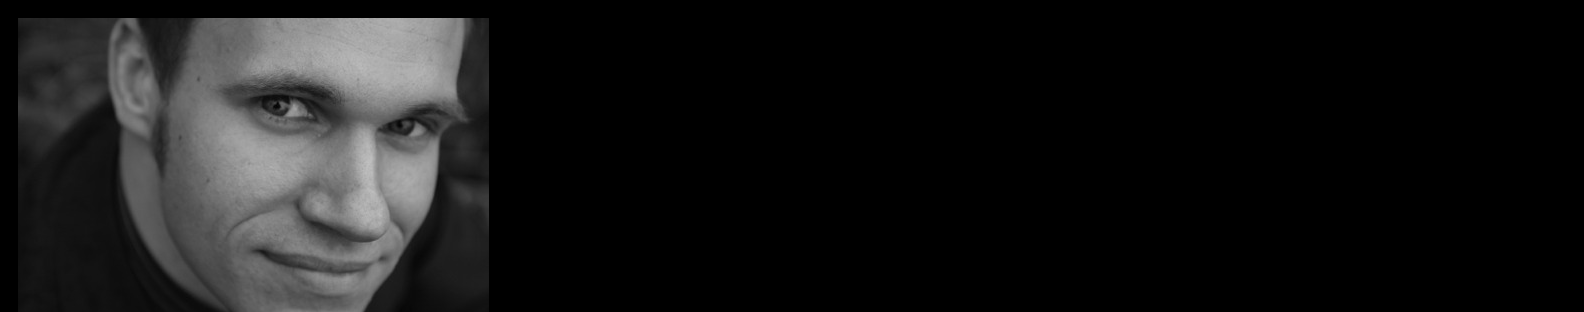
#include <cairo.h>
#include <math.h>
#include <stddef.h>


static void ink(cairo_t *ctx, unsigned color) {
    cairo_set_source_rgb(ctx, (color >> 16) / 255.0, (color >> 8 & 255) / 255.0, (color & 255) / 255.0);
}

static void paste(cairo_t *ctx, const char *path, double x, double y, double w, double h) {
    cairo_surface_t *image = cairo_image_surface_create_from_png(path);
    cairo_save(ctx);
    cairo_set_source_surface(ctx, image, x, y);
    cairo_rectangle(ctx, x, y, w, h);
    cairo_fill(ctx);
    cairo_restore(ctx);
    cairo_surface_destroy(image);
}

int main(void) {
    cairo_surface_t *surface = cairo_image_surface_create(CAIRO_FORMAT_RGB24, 1584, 312);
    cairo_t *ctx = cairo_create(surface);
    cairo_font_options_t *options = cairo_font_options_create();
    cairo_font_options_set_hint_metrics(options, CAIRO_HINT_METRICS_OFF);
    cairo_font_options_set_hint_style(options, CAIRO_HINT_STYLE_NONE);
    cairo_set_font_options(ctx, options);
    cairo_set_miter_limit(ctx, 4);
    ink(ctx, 0x000000);
    cairo_paint(ctx);
    paste(ctx, "media/1.png", 18, 18, 471, 294);
    cairo_surface_write_to_png(surface, "image.png");
    cairo_font_options_destroy(options);
    cairo_destroy(ctx);
    cairo_surface_destroy(surface);
    return 0;
}
